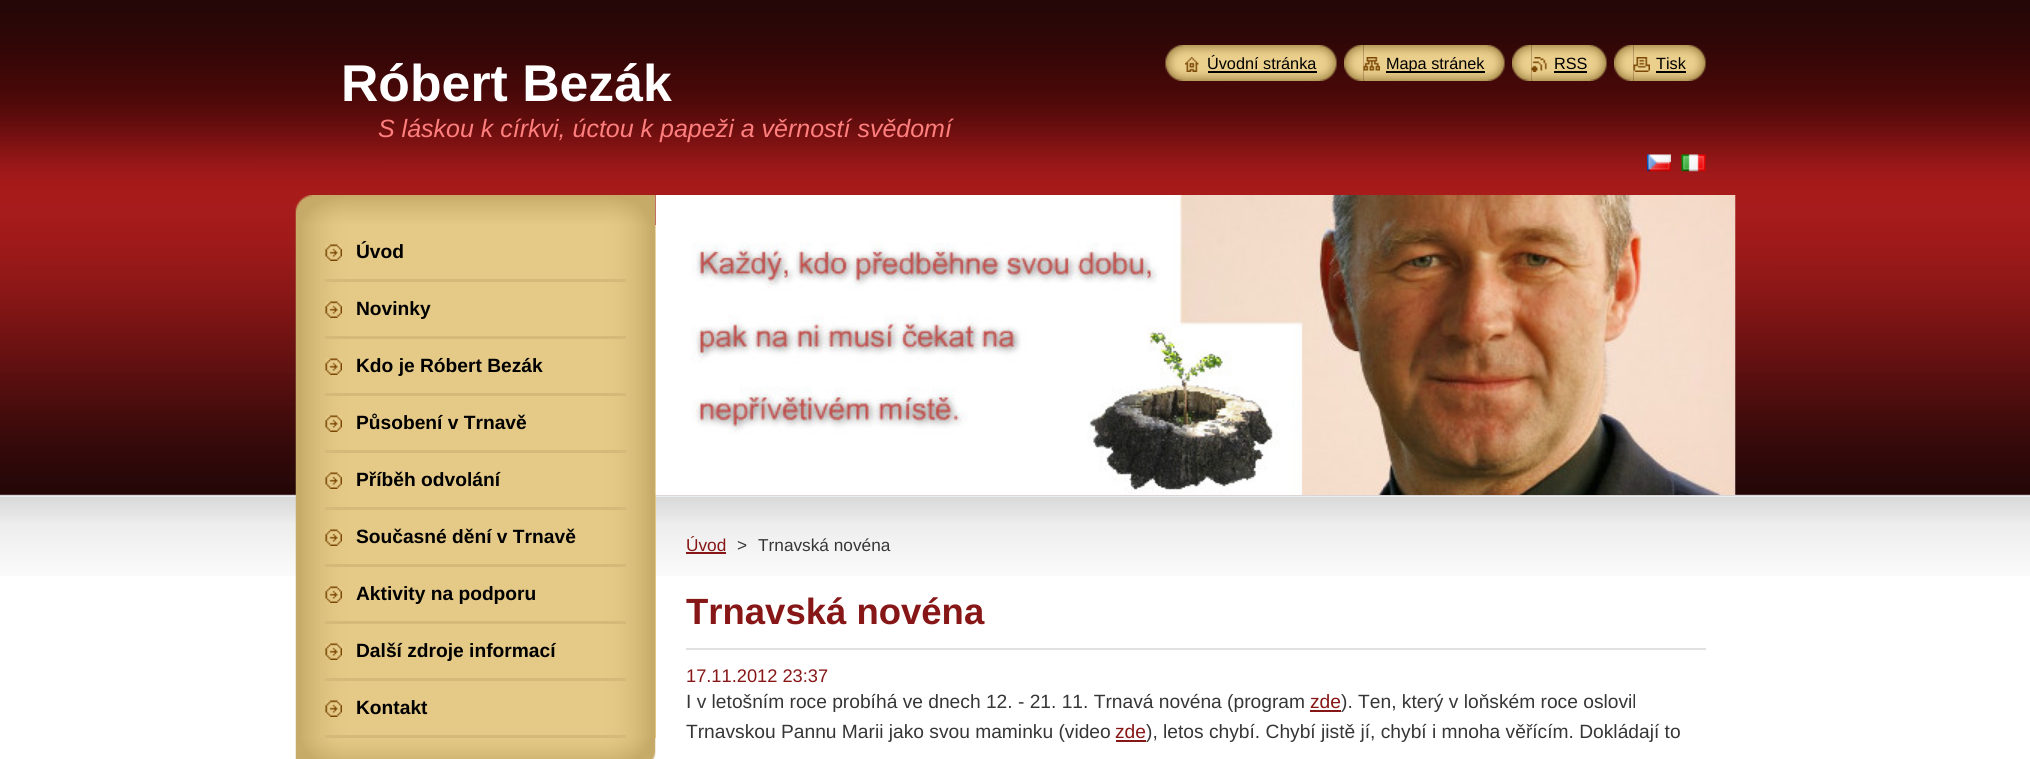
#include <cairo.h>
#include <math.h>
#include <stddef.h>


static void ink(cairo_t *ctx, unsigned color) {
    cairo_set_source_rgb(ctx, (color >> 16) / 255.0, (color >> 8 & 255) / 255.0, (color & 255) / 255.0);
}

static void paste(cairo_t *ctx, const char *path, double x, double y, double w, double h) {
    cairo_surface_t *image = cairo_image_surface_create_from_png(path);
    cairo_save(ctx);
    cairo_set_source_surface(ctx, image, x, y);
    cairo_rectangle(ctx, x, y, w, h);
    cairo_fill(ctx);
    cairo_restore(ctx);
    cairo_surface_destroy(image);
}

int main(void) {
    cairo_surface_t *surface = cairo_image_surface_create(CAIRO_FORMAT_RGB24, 2030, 759);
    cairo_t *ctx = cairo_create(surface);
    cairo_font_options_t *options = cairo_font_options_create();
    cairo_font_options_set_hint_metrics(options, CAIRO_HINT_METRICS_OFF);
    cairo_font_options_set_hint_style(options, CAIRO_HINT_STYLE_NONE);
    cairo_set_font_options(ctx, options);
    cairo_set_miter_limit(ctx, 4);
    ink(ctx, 0xFFFFFF);
    cairo_paint(ctx);
    paste(ctx, "media/1.png", 0, 0, 2030, 576);
    cairo_select_font_face(ctx, "Liberation Sans", CAIRO_FONT_SLANT_NORMAL, CAIRO_FONT_WEIGHT_BOLD);
    cairo_set_font_size(ctx, 51.75);
    ink(ctx, 0xFFFFFF);
    cairo_move_to(ctx, 341, 101);
    cairo_show_text(ctx, "Róbert Bezák");
    cairo_select_font_face(ctx, "Liberation Sans", CAIRO_FONT_SLANT_ITALIC, CAIRO_FONT_WEIGHT_NORMAL);
    cairo_set_font_size(ctx, 25);
    ink(ctx, 0xFF7E7E);
    cairo_move_to(ctx, 378, 137);
    cairo_show_text(ctx, "S láskou k církvi, úctou k papeži a věrností svědomí");
    paste(ctx, "media/2.png", 1165, 45, 20, 36);
    paste(ctx, "media/3.png", 1185, 45, 152, 36);
    paste(ctx, "media/4.png", 1185, 57, 14, 15);
    cairo_select_font_face(ctx, "Liberation Sans", CAIRO_FONT_SLANT_NORMAL, CAIRO_FONT_WEIGHT_NORMAL);
    cairo_set_font_size(ctx, 16.25);
    ink(ctx, 0x000000);
    cairo_move_to(ctx, 1207, 69);
    cairo_show_text(ctx, "Úvodní stránka");
    cairo_rectangle(ctx, 1208, 71, 109, 2);
    cairo_fill(ctx);
    paste(ctx, "media/5.png", 1344, 45, 20, 36);
    paste(ctx, "media/6.png", 1363, 45, 142, 36);
    paste(ctx, "media/7.png", 1363, 57, 17, 14);
    cairo_rectangle(ctx, 1386, 71, 99, 2);
    cairo_fill(ctx);
    cairo_move_to(ctx, 1386, 69);
    cairo_show_text(ctx, "Mapa stránek");
    paste(ctx, "media/5.png", 1512, 45, 20, 36);
    paste(ctx, "media/8.png", 1531, 45, 76, 36);
    paste(ctx, "media/9.png", 1531, 57, 16, 15);
    cairo_move_to(ctx, 1554, 69);
    cairo_show_text(ctx, "RSS");
    cairo_rectangle(ctx, 1554, 71, 33, 2);
    cairo_fill(ctx);
    paste(ctx, "media/10.png", 1614, 45, 20, 36);
    paste(ctx, "media/11.png", 1633, 45, 73, 36);
    paste(ctx, "media/12.png", 1633, 57, 17, 15);
    cairo_move_to(ctx, 1656, 69);
    cairo_show_text(ctx, "Tisk");
    cairo_rectangle(ctx, 1656, 71, 30, 2);
    cairo_fill(ctx);
    paste(ctx, "media/13.png", 1647, 154, 24, 18);
    paste(ctx, "media/14.png", 1681, 154, 25, 18);
    paste(ctx, "media/15.png", 295, 195, 361, 30);
    paste(ctx, "media/16.png", 295, 738, 361, 21);
    ink(ctx, 0xEBCF8D);
    cairo_rectangle(ctx, 655, 225, 1, 513);
    cairo_fill(ctx);
    paste(ctx, "media/17.png", 295, 225, 361, 513);
    ink(ctx, 0xD4B97B);
    cairo_rectangle(ctx, 325, 279, 301, 3);
    cairo_fill(ctx);
    paste(ctx, "media/18.png", 325, 244, 17, 17);
    cairo_select_font_face(ctx, "Liberation Sans", CAIRO_FONT_SLANT_NORMAL, CAIRO_FONT_WEIGHT_BOLD);
    cairo_set_font_size(ctx, 19.2);
    ink(ctx, 0x000000);
    cairo_move_to(ctx, 356, 258);
    cairo_show_text(ctx, "Úvod");
    ink(ctx, 0xD4B97B);
    cairo_rectangle(ctx, 325, 336, 301, 3);
    cairo_fill(ctx);
    paste(ctx, "media/18.png", 325, 301, 17, 17);
    ink(ctx, 0x000000);
    cairo_move_to(ctx, 356, 315);
    cairo_show_text(ctx, "Novinky");
    ink(ctx, 0xD4B97B);
    cairo_rectangle(ctx, 325, 393, 301, 3);
    cairo_fill(ctx);
    paste(ctx, "media/18.png", 325, 358, 17, 17);
    ink(ctx, 0x000000);
    cairo_move_to(ctx, 356, 372);
    cairo_show_text(ctx, "Kdo je Róbert Bezák");
    ink(ctx, 0xD4B97B);
    cairo_rectangle(ctx, 325, 450, 301, 3);
    cairo_fill(ctx);
    paste(ctx, "media/18.png", 325, 415, 17, 17);
    ink(ctx, 0x000000);
    cairo_move_to(ctx, 356, 429);
    cairo_show_text(ctx, "Působení v Trnavě");
    ink(ctx, 0xD4B97B);
    cairo_rectangle(ctx, 325, 507, 301, 3);
    cairo_fill(ctx);
    paste(ctx, "media/18.png", 325, 472, 17, 17);
    ink(ctx, 0x000000);
    cairo_move_to(ctx, 356, 486);
    cairo_show_text(ctx, "Příběh odvolání");
    ink(ctx, 0xD4B97B);
    cairo_rectangle(ctx, 325, 564, 301, 3);
    cairo_fill(ctx);
    paste(ctx, "media/18.png", 325, 529, 17, 17);
    ink(ctx, 0x000000);
    cairo_move_to(ctx, 356, 543);
    cairo_show_text(ctx, "Současné dění v Trnavě");
    ink(ctx, 0xD4B97B);
    cairo_rectangle(ctx, 325, 621, 301, 3);
    cairo_fill(ctx);
    paste(ctx, "media/18.png", 325, 586, 17, 17);
    ink(ctx, 0x000000);
    cairo_move_to(ctx, 356, 600);
    cairo_show_text(ctx, "Aktivity na podporu");
    ink(ctx, 0xD4B97B);
    cairo_rectangle(ctx, 325, 678, 301, 3);
    cairo_fill(ctx);
    paste(ctx, "media/18.png", 325, 643, 17, 17);
    ink(ctx, 0x000000);
    cairo_move_to(ctx, 356, 657);
    cairo_show_text(ctx, "Další zdroje informací");
    ink(ctx, 0xD4B97B);
    cairo_rectangle(ctx, 325, 735, 301, 3);
    cairo_fill(ctx);
    paste(ctx, "media/18.png", 325, 700, 17, 17);
    ink(ctx, 0x000000);
    cairo_move_to(ctx, 356, 714);
    cairo_show_text(ctx, "Kontakt");
    paste(ctx, "media/19.png", 655, 195, 1081, 300);
    cairo_select_font_face(ctx, "Liberation Sans", CAIRO_FONT_SLANT_NORMAL, CAIRO_FONT_WEIGHT_NORMAL);
    cairo_set_font_size(ctx, 17.25);
    ink(ctx, 0x871616);
    cairo_move_to(ctx, 686, 551);
    cairo_show_text(ctx, "Úvod");
    cairo_rectangle(ctx, 686, 552, 40, 2);
    cairo_fill(ctx);
    ink(ctx, 0x363636);
    cairo_move_to(ctx, 737, 551);
    cairo_show_text(ctx, ">");
    cairo_move_to(ctx, 758, 551);
    cairo_show_text(ctx, "Trnavská novéna");
    ink(ctx, 0xE1E1E1);
    cairo_rectangle(ctx, 686, 648, 1020, 2);
    cairo_fill(ctx);
    cairo_save(ctx);
    cairo_rectangle(ctx, 686, 591, 1020, 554);
    cairo_clip(ctx);
    cairo_select_font_face(ctx, "Liberation Sans", CAIRO_FONT_SLANT_NORMAL, CAIRO_FONT_WEIGHT_BOLD);
    cairo_set_font_size(ctx, 36.5);
    ink(ctx, 0x871616);
    cairo_move_to(ctx, 686, 624);
    cairo_show_text(ctx, "Trnavská novéna");
    cairo_restore(ctx);
    cairo_set_font_size(ctx, 18.25);
    ink(ctx, 0x871616);
    cairo_move_to(ctx, 686, 682);
    cairo_show_text(ctx, "17.11.2012 23:37");
    cairo_set_font_size(ctx, 19.2);
    ink(ctx, 0x363636);
    cairo_move_to(ctx, 686, 708);
    cairo_show_text(ctx, "I v letošním roce probíhá ve dnech 12. - 21. 11. Trnavá novéna (program");
    ink(ctx, 0x871616);
    cairo_move_to(ctx, 1310, 708);
    cairo_show_text(ctx, "zde");
    cairo_rectangle(ctx, 1310, 710, 31, 2);
    cairo_fill(ctx);
    ink(ctx, 0x363636);
    cairo_move_to(ctx, 1341, 708);
    cairo_show_text(ctx, "). Ten, který v loňském roce oslovil");
    cairo_move_to(ctx, 686, 738);
    cairo_show_text(ctx, "Trnavskou Pannu Marii jako svou maminku (video");
    ink(ctx, 0x871616);
    cairo_move_to(ctx, 1115, 738);
    cairo_show_text(ctx, "zde");
    cairo_rectangle(ctx, 1116, 740, 30, 2);
    cairo_fill(ctx);
    ink(ctx, 0x363636);
    cairo_move_to(ctx, 1146, 738);
    cairo_show_text(ctx, "), letos chybí. Chybí jistě jí, chybí i mnoha věřícím. Dokládají to");
    cairo_surface_write_to_png(surface, "image.png");
    cairo_font_options_destroy(options);
    cairo_destroy(ctx);
    cairo_surface_destroy(surface);
    return 0;
}
